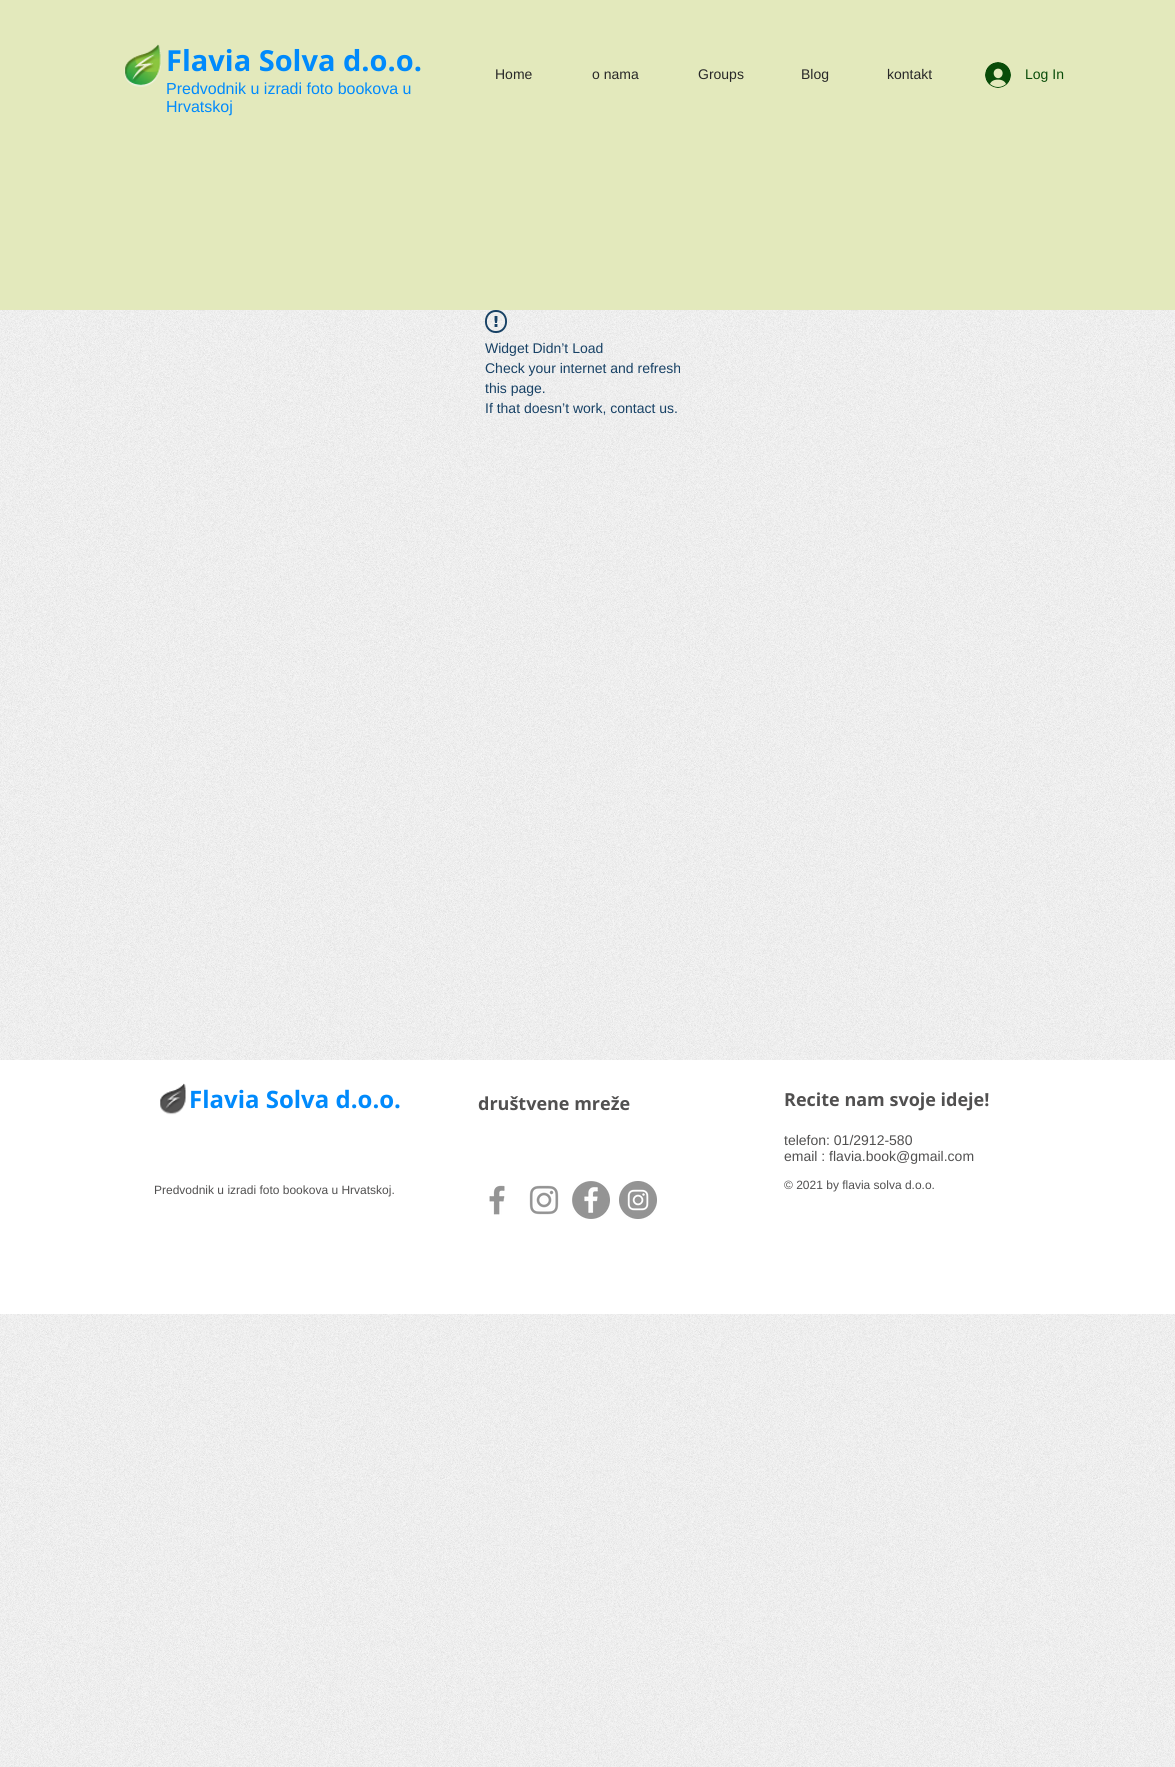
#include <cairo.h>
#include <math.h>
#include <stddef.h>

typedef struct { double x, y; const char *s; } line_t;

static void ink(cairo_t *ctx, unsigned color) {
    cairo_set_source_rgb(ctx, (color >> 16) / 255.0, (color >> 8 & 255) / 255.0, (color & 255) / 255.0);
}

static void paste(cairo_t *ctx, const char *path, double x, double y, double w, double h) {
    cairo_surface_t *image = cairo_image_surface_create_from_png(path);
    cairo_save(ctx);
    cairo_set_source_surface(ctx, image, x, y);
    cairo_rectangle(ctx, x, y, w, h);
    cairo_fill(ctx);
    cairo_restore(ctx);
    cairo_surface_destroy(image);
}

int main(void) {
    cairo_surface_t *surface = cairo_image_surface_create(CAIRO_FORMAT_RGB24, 1175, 1767);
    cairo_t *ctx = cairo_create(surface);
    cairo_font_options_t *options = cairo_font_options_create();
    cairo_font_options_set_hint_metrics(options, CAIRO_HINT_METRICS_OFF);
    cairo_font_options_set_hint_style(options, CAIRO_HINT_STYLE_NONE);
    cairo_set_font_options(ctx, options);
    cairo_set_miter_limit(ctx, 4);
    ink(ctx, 0xFFFFFF);
    cairo_paint(ctx);
    ink(ctx, 0xE3E9BC);
    cairo_rectangle(ctx, 0, 0, 1175, 310);
    cairo_fill(ctx);
    paste(ctx, "media/1.png", 124, 44, 38, 43);
    cairo_select_font_face(ctx, "Open Sans", CAIRO_FONT_SLANT_NORMAL, CAIRO_FONT_WEIGHT_BOLD);
    cairo_set_font_size(ctx, 29);
    ink(ctx, 0x008AFC);
    cairo_move_to(ctx, 166, 71);
    cairo_show_text(ctx, "Flavia Solva d.o.o.");
    cairo_select_font_face(ctx, "Liberation Sans", CAIRO_FONT_SLANT_NORMAL, CAIRO_FONT_WEIGHT_NORMAL);
    cairo_set_font_size(ctx, 16);
    cairo_move_to(ctx, 166, 94);
    cairo_show_text(ctx, "Predvodnik u izradi foto bookova u");
    cairo_move_to(ctx, 166, 112);
    cairo_show_text(ctx, "Hrvatskoj");
    cairo_set_font_size(ctx, 14);
    ink(ctx, 0x282828);
    {
        static const line_t items[] = {
            {495, 79, "Home"},
            {592, 79, "o nama"},
            {698, 79, "Groups"},
            {801, 79, "Blog"},
            {887, 79, "kontakt"},
        };
        for (size_t i = 0; i < sizeof items / sizeof *items; i++) {
            cairo_move_to(ctx, items[i].x, items[i].y);
            cairo_show_text(ctx, items[i].s);
        }
    }
    paste(ctx, "media/2.png", 985, 62, 26, 26);
    ink(ctx, 0x094C09);
    cairo_move_to(ctx, 1025, 79);
    cairo_show_text(ctx, "Log In");
    paste(ctx, "media/9.png", 0, 310, 1175, 1457);
    paste(ctx, "media/3.png", 485, 310, 22, 23);
    ink(ctx, 0x174165);
    {
        static const line_t items[] = {
            {485, 353, "Widget Didn’t Load"},
            {485, 373, "Check your internet and refresh"},
            {485, 393, "this page."},
            {485, 413, "If that doesn’t work, contact us."},
        };
        for (size_t i = 0; i < sizeof items / sizeof *items; i++) {
            cairo_move_to(ctx, items[i].x, items[i].y);
            cairo_show_text(ctx, items[i].s);
        }
    }
    ink(ctx, 0xFFFFFF);
    cairo_rectangle(ctx, 0, 1060, 1175, 254);
    cairo_fill(ctx);
    paste(ctx, "media/4.png", 160, 1083, 26, 32);
    cairo_select_font_face(ctx, "Open Sans", CAIRO_FONT_SLANT_NORMAL, CAIRO_FONT_WEIGHT_BOLD);
    cairo_set_font_size(ctx, 24);
    ink(ctx, 0x008AFC);
    cairo_move_to(ctx, 189, 1108);
    cairo_show_text(ctx, "Flavia Solva d.o.o.");
    cairo_set_font_size(ctx, 18);
    ink(ctx, 0x515050);
    cairo_move_to(ctx, 478, 1110);
    cairo_show_text(ctx, "društvene mreže");
    cairo_move_to(ctx, 784, 1106);
    cairo_show_text(ctx, "Recite nam svoje ideje!");
    cairo_select_font_face(ctx, "Liberation Sans", CAIRO_FONT_SLANT_NORMAL, CAIRO_FONT_WEIGHT_NORMAL);
    cairo_set_font_size(ctx, 14);
    cairo_move_to(ctx, 784, 1145);
    cairo_show_text(ctx, "telefon: 01/2912-580");
    cairo_move_to(ctx, 784, 1161);
    cairo_show_text(ctx, "email : flavia.book@gmail.com");
    cairo_set_font_size(ctx, 12);
    cairo_move_to(ctx, 784, 1189);
    cairo_show_text(ctx, "© 2021 by flavia solva d.o.o.");
    cairo_move_to(ctx, 154, 1194);
    cairo_show_text(ctx, "Predvodnik u izradi foto bookova u Hrvatskoj.");
    paste(ctx, "media/5.png", 489, 1185, 16, 30);
    paste(ctx, "media/6.png", 529, 1185, 30, 30);
    paste(ctx, "media/7.png", 572, 1181, 38, 38);
    paste(ctx, "media/8.png", 619, 1181, 38, 38);
    cairo_surface_write_to_png(surface, "image.png");
    cairo_font_options_destroy(options);
    cairo_destroy(ctx);
    cairo_surface_destroy(surface);
    return 0;
}
